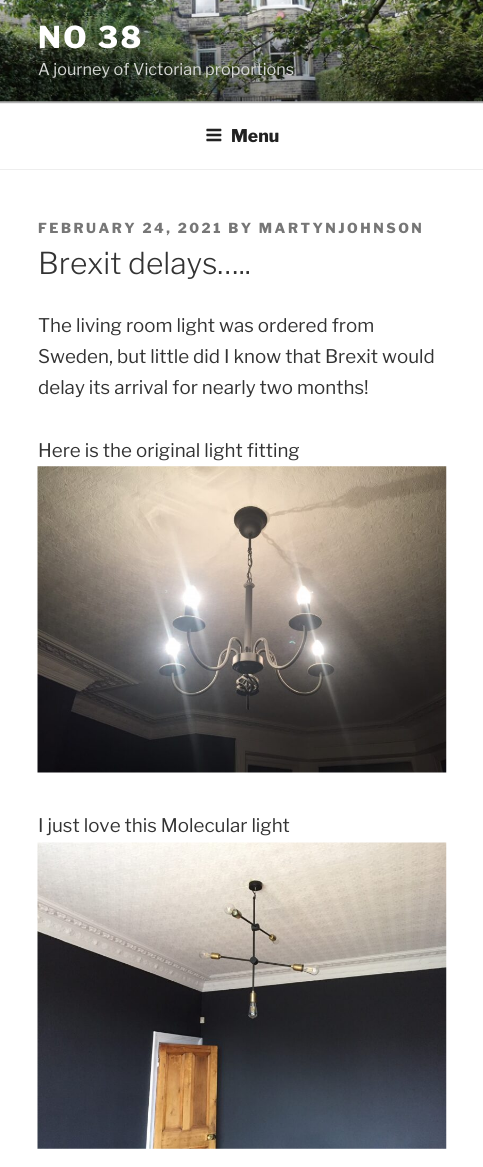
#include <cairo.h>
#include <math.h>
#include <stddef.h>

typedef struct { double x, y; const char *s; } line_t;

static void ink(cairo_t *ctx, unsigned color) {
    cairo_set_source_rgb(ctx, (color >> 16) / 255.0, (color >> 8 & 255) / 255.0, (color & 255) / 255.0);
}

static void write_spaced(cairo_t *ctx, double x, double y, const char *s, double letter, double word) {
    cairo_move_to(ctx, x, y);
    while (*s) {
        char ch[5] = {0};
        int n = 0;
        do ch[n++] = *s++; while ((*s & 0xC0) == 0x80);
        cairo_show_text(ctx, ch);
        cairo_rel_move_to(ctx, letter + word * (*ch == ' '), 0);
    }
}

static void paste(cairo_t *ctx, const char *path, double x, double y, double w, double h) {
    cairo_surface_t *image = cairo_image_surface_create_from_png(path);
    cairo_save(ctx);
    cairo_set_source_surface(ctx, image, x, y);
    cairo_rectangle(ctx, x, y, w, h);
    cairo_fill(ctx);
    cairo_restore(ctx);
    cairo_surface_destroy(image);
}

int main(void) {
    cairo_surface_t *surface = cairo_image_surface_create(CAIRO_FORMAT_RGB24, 483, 1167);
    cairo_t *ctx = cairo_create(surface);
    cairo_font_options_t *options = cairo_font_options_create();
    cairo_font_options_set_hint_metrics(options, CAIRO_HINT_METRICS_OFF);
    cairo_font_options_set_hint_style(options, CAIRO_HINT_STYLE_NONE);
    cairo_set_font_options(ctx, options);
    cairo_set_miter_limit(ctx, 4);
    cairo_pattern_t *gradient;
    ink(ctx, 0xFFFFFF);
    cairo_paint(ctx);
    ink(ctx, 0xFAFAFA);
    cairo_rectangle(ctx, 0, 101, 483, 2);
    cairo_fill(ctx);
    paste(ctx, "media/1.png", 0, 0, 483, 102);
    gradient = cairo_pattern_create_linear(242, 0, 242, 103);
    cairo_pattern_add_color_stop_rgba(gradient, 0, 0, 0, 0, 0);
    cairo_pattern_add_color_stop_rgba(gradient, 0.75, 0, 0, 0, 0.3);
    cairo_pattern_add_color_stop_rgba(gradient, 1, 0, 0, 0, 0.3);
    cairo_set_source(ctx, gradient);
    cairo_pattern_destroy(gradient);
    cairo_rectangle(ctx, 0, 6, 483, 97);
    cairo_fill(ctx);
    cairo_select_font_face(ctx, "Libre Franklin Thin", CAIRO_FONT_SLANT_NORMAL, CAIRO_FONT_WEIGHT_NORMAL);
    cairo_set_font_size(ctx, 30);
    ink(ctx, 0xFFFFFF);
    write_spaced(ctx, 38, 48, "NO 38", 2.5, 0);
    cairo_select_font_face(ctx, "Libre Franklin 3 Thin", CAIRO_FONT_SLANT_NORMAL, CAIRO_FONT_WEIGHT_NORMAL);
    cairo_set_font_size(ctx, 16.25);
    ink(ctx, 0xD6D8D5);
    cairo_move_to(ctx, 38, 75);
    cairo_show_text(ctx, "A journey of Victorian proportions");
    ink(ctx, 0xEEEEEE);
    cairo_rectangle(ctx, 0, 103, 483, 1);
    cairo_fill(ctx);
    cairo_rectangle(ctx, 0, 169, 483, 1);
    cairo_fill(ctx);
    paste(ctx, "media/2.png", 206, 128, 16, 14);
    cairo_select_font_face(ctx, "Libre Franklin Thin", CAIRO_FONT_SLANT_NORMAL, CAIRO_FONT_WEIGHT_NORMAL);
    cairo_set_font_size(ctx, 17.5);
    ink(ctx, 0x222222);
    cairo_move_to(ctx, 231, 142);
    cairo_show_text(ctx, "Menu");
    cairo_set_font_size(ctx, 13.75);
    ink(ctx, 0x767676);
    write_spaced(ctx, 38, 233, "FEBRUARY 24, 2021 BY MARTYNJOHNSON", 2.5, 0);
    cairo_select_font_face(ctx, "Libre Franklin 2 Thin", CAIRO_FONT_SLANT_NORMAL, CAIRO_FONT_WEIGHT_NORMAL);
    cairo_set_font_size(ctx, 30);
    ink(ctx, 0x333333);
    cairo_move_to(ctx, 38, 274);
    cairo_show_text(ctx, "Brexit delays…..");
    cairo_select_font_face(ctx, "Libre Franklin 3 Thin", CAIRO_FONT_SLANT_NORMAL, CAIRO_FONT_WEIGHT_NORMAL);
    cairo_set_font_size(ctx, 18.75);
    {
        static const line_t items[] = {
            {38, 332, "The living room light was ordered from"},
            {38, 363, "Sweden, but little did I know that Brexit would"},
            {38, 394, "delay its arrival for nearly two months!"},
            {38, 457, "Here is the original light fitting"},
        };
        for (size_t i = 0; i < sizeof items / sizeof *items; i++) {
            cairo_move_to(ctx, items[i].x, items[i].y);
            cairo_show_text(ctx, items[i].s);
        }
    }
    paste(ctx, "media/3.png", 37, 466, 410, 307);
    cairo_move_to(ctx, 38, 832);
    cairo_show_text(ctx, "I just love this Molecular light");
    paste(ctx, "media/4.png", 37, 842, 410, 307);
    cairo_surface_write_to_png(surface, "image.png");
    cairo_font_options_destroy(options);
    cairo_destroy(ctx);
    cairo_surface_destroy(surface);
    return 0;
}
